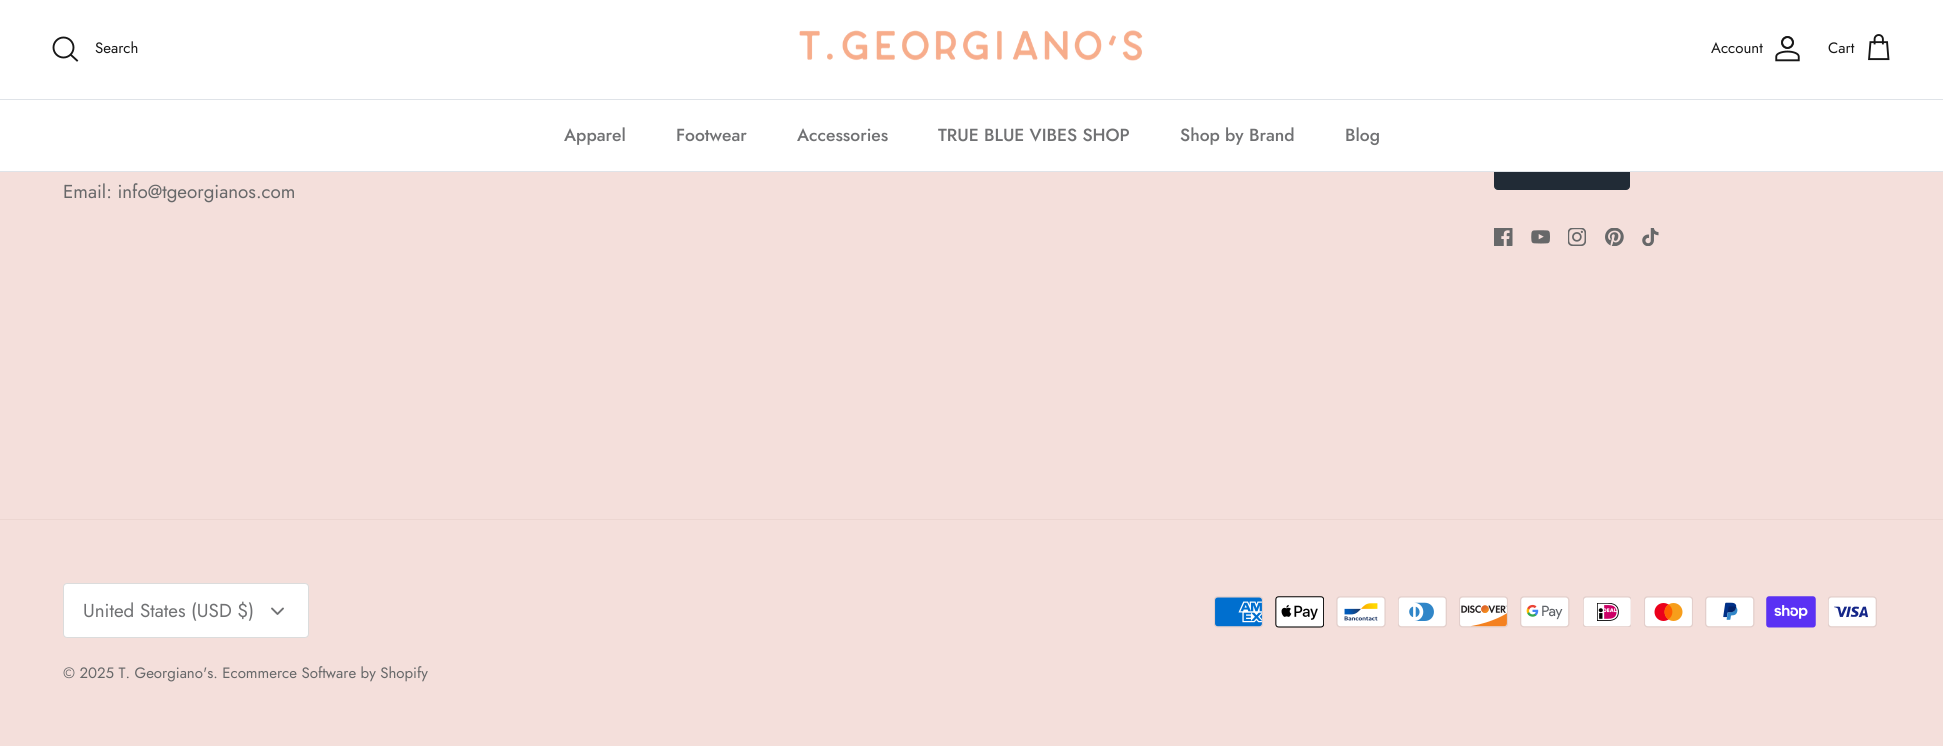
#include <cairo.h>
#include <math.h>
#include <stddef.h>

typedef struct { double x, y; const char *s; } line_t;

static void ink(cairo_t *ctx, unsigned color) {
    cairo_set_source_rgb(ctx, (color >> 16) / 255.0, (color >> 8 & 255) / 255.0, (color & 255) / 255.0);
}

static void round_path(cairo_t *ctx, double x, double y, double w, double h, double r) {
    cairo_new_sub_path(ctx);
    cairo_arc(ctx, x + w - r, y + h - r, r, 0, M_PI / 2);
    cairo_arc(ctx, x + r, y + h - r, r, M_PI / 2, M_PI);
    cairo_arc(ctx, x + r, y + r, r, M_PI, 1.5 * M_PI);
    cairo_arc(ctx, x + w - r, y + r, r, 1.5 * M_PI, 2 * M_PI);
    cairo_close_path(ctx);
}

static void paste(cairo_t *ctx, const char *path, double x, double y, double w, double h) {
    cairo_surface_t *image = cairo_image_surface_create_from_png(path);
    cairo_save(ctx);
    cairo_set_source_surface(ctx, image, x, y);
    cairo_rectangle(ctx, x, y, w, h);
    cairo_fill(ctx);
    cairo_restore(ctx);
    cairo_surface_destroy(image);
}

int main(void) {
    cairo_surface_t *surface = cairo_image_surface_create(CAIRO_FORMAT_RGB24, 1943, 746);
    cairo_t *ctx = cairo_create(surface);
    cairo_font_options_t *options = cairo_font_options_create();
    cairo_font_options_set_hint_metrics(options, CAIRO_HINT_METRICS_OFF);
    cairo_font_options_set_hint_style(options, CAIRO_HINT_STYLE_NONE);
    cairo_set_font_options(ctx, options);
    cairo_set_miter_limit(ctx, 4);
    ink(ctx, 0xF4DFDB);
    cairo_paint(ctx);
    ink(ctx, 0xFFFFFF);
    cairo_rectangle(ctx, 0, 0, 1943, 99);
    cairo_fill(ctx);
    ink(ctx, 0xDFE3E8);
    cairo_rectangle(ctx, 0, 99, 1943, 1);
    cairo_fill(ctx);
    cairo_arc(ctx, 63.5, 47.5, 10, 0, 2 * M_PI);
    ink(ctx, 0x171717);
    cairo_set_line_width(ctx, 1.9);
    cairo_stroke(ctx);
    cairo_select_font_face(ctx, "Jost", CAIRO_FONT_SLANT_NORMAL, CAIRO_FONT_WEIGHT_NORMAL);
    cairo_set_font_size(ctx, 15);
    cairo_move_to(ctx, 95, 53);
    cairo_show_text(ctx, "Search");
    cairo_new_path(ctx);
    cairo_move_to(ctx, 71, 55);
    cairo_line_to(ctx, 77, 60.5);
    cairo_set_line_cap(ctx, CAIRO_LINE_CAP_SQUARE);
    cairo_stroke(ctx);
    paste(ctx, "media/1.png", 799, 30, 344, 31);
    cairo_move_to(ctx, 1711, 53);
    cairo_show_text(ctx, "Account");
    paste(ctx, "media/2.png", 1775, 36, 25, 26);
    cairo_move_to(ctx, 1828, 53);
    cairo_show_text(ctx, "Cart");
    paste(ctx, "media/3.png", 1868, 34, 22, 27);
    ink(ctx, 0x212B36);
    round_path(ctx, 1494.5, 131.5, 135, 58, 3.5);
    cairo_fill_preserve(ctx);
    cairo_set_line_width(ctx, 1);
    cairo_set_line_cap(ctx, CAIRO_LINE_CAP_BUTT);
    cairo_stroke(ctx);
    ink(ctx, 0xDFE3E8);
    cairo_rectangle(ctx, 0, 171, 1943, 1);
    cairo_fill(ctx);
    ink(ctx, 0xFFFFFF);
    cairo_rectangle(ctx, 0, 100, 1943, 71);
    cairo_fill(ctx);
    cairo_select_font_face(ctx, "Jost Medium", CAIRO_FONT_SLANT_NORMAL, CAIRO_FONT_WEIGHT_NORMAL);
    cairo_set_font_size(ctx, 17.5);
    ink(ctx, 0x707173);
    {
        static const line_t items[] = {
            {564, 141, "Apparel"},
            {676, 141, "Footwear"},
            {797, 141, "Accessories"},
            {938, 141, "TRUE BLUE VIBES SHOP"},
            {1180, 141, "Shop by Brand"},
            {1345, 141, "Blog"},
        };
        for (size_t i = 0; i < sizeof items / sizeof *items; i++) {
            cairo_move_to(ctx, items[i].x, items[i].y);
            cairo_show_text(ctx, items[i].s);
        }
    }
    cairo_select_font_face(ctx, "Jost", CAIRO_FONT_SLANT_NORMAL, CAIRO_FONT_WEIGHT_NORMAL);
    cairo_set_font_size(ctx, 18.75);
    ink(ctx, 0x676869);
    cairo_move_to(ctx, 63, 198);
    cairo_show_text(ctx, "Email: info@tgeorgianos.com");
    paste(ctx, "media/4.png", 1494, 228, 19, 18);
    paste(ctx, "media/5.png", 1531, 230, 19, 14);
    paste(ctx, "media/6.png", 1568, 228, 18, 18);
    paste(ctx, "media/7.png", 1605, 228, 19, 18);
    paste(ctx, "media/8.png", 1642, 228, 17, 18);
    ink(ctx, 0xECD6D1);
    cairo_rectangle(ctx, 0, 519, 1943, 1);
    cairo_fill(ctx);
    ink(ctx, 0xFFFFFF);
    round_path(ctx, 63.5, 583.5, 245, 54, 3.5);
    cairo_fill_preserve(ctx);
    ink(ctx, 0xDBDCDC);
    cairo_stroke(ctx);
    ink(ctx, 0x707173);
    cairo_move_to(ctx, 83, 617);
    cairo_show_text(ctx, "United States (USD $)");
    cairo_new_path(ctx);
    cairo_move_to(ctx, 272, 608.5);
    cairo_line_to(ctx, 277.5, 614);
    cairo_line_to(ctx, 283, 608.5);
    cairo_set_line_width(ctx, 1.9);
    cairo_set_line_cap(ctx, CAIRO_LINE_CAP_ROUND);
    cairo_set_line_join(ctx, CAIRO_LINE_JOIN_ROUND);
    cairo_stroke(ctx);
    cairo_set_font_size(ctx, 15);
    ink(ctx, 0x676869);
    cairo_move_to(ctx, 63, 678);
    cairo_show_text(ctx, "© 2025 T. Georgiano's. Ecommerce Software by Shopify");
    paste(ctx, "media/9.png", 1214, 596, 49, 32);
    paste(ctx, "media/10.png", 1275, 596, 49, 32);
    paste(ctx, "media/11.png", 1336, 596, 50, 32);
    paste(ctx, "media/12.png", 1398, 596, 49, 32);
    paste(ctx, "media/13.png", 1459, 596, 49, 32);
    paste(ctx, "media/14.png", 1520, 596, 50, 32);
    paste(ctx, "media/15.png", 1583, 596, 48, 31);
    paste(ctx, "media/16.png", 1644, 596, 49, 32);
    paste(ctx, "media/17.png", 1705, 596, 50, 32);
    paste(ctx, "media/18.png", 1766, 596, 50, 32);
    paste(ctx, "media/19.png", 1828, 596, 49, 32);
    cairo_surface_write_to_png(surface, "image.png");
    cairo_font_options_destroy(options);
    cairo_destroy(ctx);
    cairo_surface_destroy(surface);
    return 0;
}
